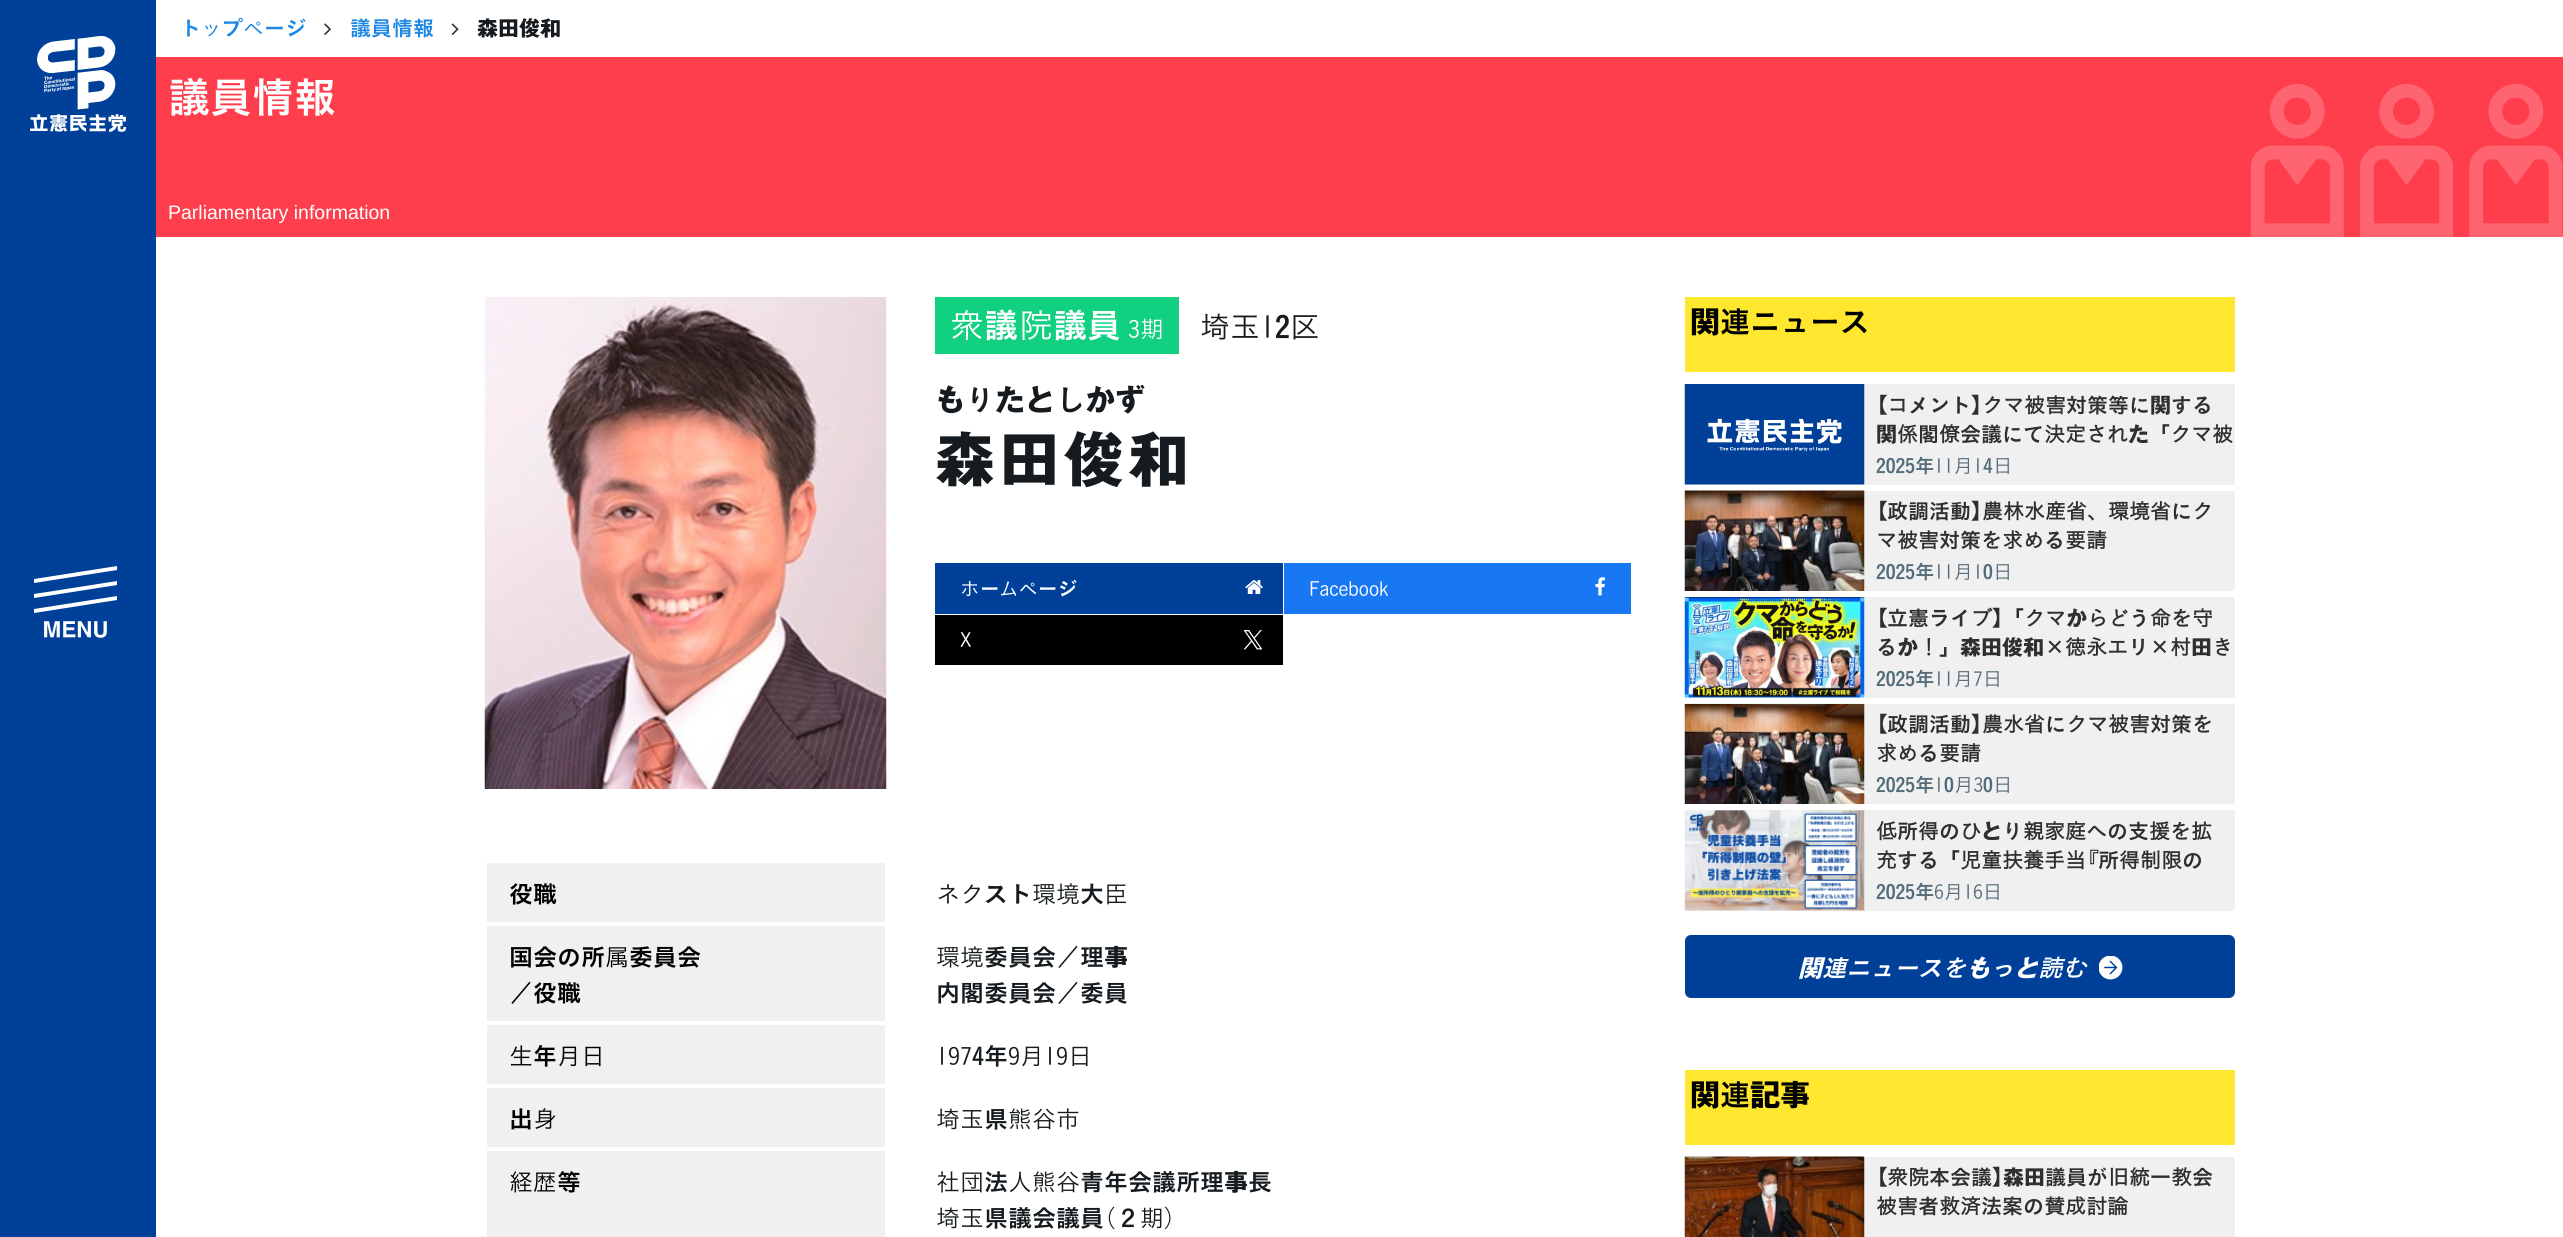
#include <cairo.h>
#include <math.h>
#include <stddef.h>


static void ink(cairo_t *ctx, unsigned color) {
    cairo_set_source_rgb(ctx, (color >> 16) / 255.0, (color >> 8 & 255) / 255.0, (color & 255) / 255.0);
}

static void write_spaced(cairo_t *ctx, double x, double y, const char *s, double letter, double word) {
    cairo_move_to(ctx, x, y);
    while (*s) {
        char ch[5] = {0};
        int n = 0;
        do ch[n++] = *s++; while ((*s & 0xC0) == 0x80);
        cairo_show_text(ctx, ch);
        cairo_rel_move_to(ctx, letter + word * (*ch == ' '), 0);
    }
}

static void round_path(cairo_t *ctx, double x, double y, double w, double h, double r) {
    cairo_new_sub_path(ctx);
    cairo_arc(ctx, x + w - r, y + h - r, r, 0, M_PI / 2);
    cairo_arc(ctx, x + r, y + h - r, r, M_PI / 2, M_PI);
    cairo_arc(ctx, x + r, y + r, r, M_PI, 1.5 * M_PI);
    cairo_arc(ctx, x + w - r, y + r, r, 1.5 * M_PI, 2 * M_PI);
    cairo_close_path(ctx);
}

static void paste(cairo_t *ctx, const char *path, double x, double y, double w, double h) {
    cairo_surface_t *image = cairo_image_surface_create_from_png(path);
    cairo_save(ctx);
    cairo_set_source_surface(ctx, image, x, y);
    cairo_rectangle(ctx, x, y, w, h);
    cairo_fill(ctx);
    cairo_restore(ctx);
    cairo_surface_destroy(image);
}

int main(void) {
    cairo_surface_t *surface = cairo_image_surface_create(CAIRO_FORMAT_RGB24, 2563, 1237);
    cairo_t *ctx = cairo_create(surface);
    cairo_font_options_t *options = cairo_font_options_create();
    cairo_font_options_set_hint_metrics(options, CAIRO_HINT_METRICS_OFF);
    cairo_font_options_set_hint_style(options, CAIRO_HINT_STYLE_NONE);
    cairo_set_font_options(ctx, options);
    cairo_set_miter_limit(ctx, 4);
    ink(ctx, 0xFFFFFF);
    cairo_paint(ctx);
    ink(ctx, 0x004098);
    cairo_rectangle(ctx, 0, 0, 156, 1237);
    cairo_fill(ctx);
    paste(ctx, "media/1.png", 30, 36, 96, 96);
    paste(ctx, "media/2.png", 44, 621, 63, 17);
    ink(ctx, 0xFFFFFF);
    cairo_new_path(ctx);
    cairo_move_to(ctx, 34, 579);
    cairo_line_to(ctx, 117, 566);
    cairo_line_to(ctx, 117, 570);
    cairo_line_to(ctx, 34, 583);
    cairo_close_path(ctx);
    cairo_fill(ctx);
    cairo_new_path(ctx);
    cairo_move_to(ctx, 34, 594);
    cairo_line_to(ctx, 117, 581);
    cairo_line_to(ctx, 117, 585);
    cairo_line_to(ctx, 34, 598);
    cairo_close_path(ctx);
    cairo_fill(ctx);
    cairo_new_path(ctx);
    cairo_move_to(ctx, 34, 609);
    cairo_line_to(ctx, 117, 596);
    cairo_line_to(ctx, 117, 600);
    cairo_line_to(ctx, 34, 613);
    cairo_close_path(ctx);
    cairo_fill(ctx);
    cairo_select_font_face(ctx, "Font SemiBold", CAIRO_FONT_SLANT_NORMAL, CAIRO_FONT_WEIGHT_NORMAL);
    cairo_set_font_size(ctx, 21);
    ink(ctx, 0x1E88E5);
    cairo_move_to(ctx, 180, 36);
    cairo_show_text(ctx, "ト");
    cairo_select_font_face(ctx, "Font Light", CAIRO_FONT_SLANT_NORMAL, CAIRO_FONT_WEIGHT_NORMAL);
    cairo_move_to(ctx, 201, 36);
    cairo_show_text(ctx, "ッ");
    cairo_select_font_face(ctx, "Font SemiBold", CAIRO_FONT_SLANT_NORMAL, CAIRO_FONT_WEIGHT_NORMAL);
    cairo_move_to(ctx, 222, 36);
    cairo_show_text(ctx, "プ");
    cairo_select_font_face(ctx, "Font Light", CAIRO_FONT_SLANT_NORMAL, CAIRO_FONT_WEIGHT_NORMAL);
    cairo_move_to(ctx, 243, 36);
    cairo_show_text(ctx, "ペ");
    cairo_select_font_face(ctx, "Font SemiBold", CAIRO_FONT_SLANT_NORMAL, CAIRO_FONT_WEIGHT_NORMAL);
    cairo_move_to(ctx, 264, 36);
    cairo_show_text(ctx, "ージ");
    paste(ctx, "media/3.png", 324, 23, 7, 12);
    cairo_move_to(ctx, 350, 36);
    cairo_show_text(ctx, "議員情報");
    paste(ctx, "media/4.png", 451, 23, 8, 12);
    cairo_select_font_face(ctx, "Font", CAIRO_FONT_SLANT_NORMAL, CAIRO_FONT_WEIGHT_BOLD);
    ink(ctx, 0x151B1E);
    cairo_move_to(ctx, 477, 36);
    cairo_show_text(ctx, "森田俊和");
    ink(ctx, 0xFF3E4D);
    cairo_rectangle(ctx, 156, 57, 2407, 180);
    cairo_fill(ctx);
    paste(ctx, "media/5.png", 2250, 84, 313, 153);
    cairo_select_font_face(ctx, "Font SemiBold", CAIRO_FONT_SLANT_NORMAL, CAIRO_FONT_WEIGHT_NORMAL);
    cairo_set_font_size(ctx, 42);
    ink(ctx, 0xFFFFFF);
    cairo_move_to(ctx, 168, 113);
    cairo_show_text(ctx, "議員情報");
    cairo_select_font_face(ctx, "Liberation Sans", CAIRO_FONT_SLANT_NORMAL, CAIRO_FONT_WEIGHT_NORMAL);
    cairo_set_font_size(ctx, 19.5);
    cairo_move_to(ctx, 168, 219);
    cairo_show_text(ctx, "Parliamentary information");
    paste(ctx, "media/6.png", 484, 297, 403, 492);
    ink(ctx, 0x11D080);
    cairo_rectangle(ctx, 935, 297, 244, 57);
    cairo_fill(ctx);
    cairo_select_font_face(ctx, "Font Light", CAIRO_FONT_SLANT_NORMAL, CAIRO_FONT_WEIGHT_NORMAL);
    cairo_set_font_size(ctx, 34);
    ink(ctx, 0xFFFFFF);
    cairo_move_to(ctx, 950, 338);
    cairo_show_text(ctx, "衆");
    cairo_select_font_face(ctx, "Font SemiBold", CAIRO_FONT_SLANT_NORMAL, CAIRO_FONT_WEIGHT_NORMAL);
    cairo_move_to(ctx, 984, 338);
    cairo_show_text(ctx, "議");
    cairo_select_font_face(ctx, "Font Light", CAIRO_FONT_SLANT_NORMAL, CAIRO_FONT_WEIGHT_NORMAL);
    cairo_move_to(ctx, 1019, 338);
    cairo_show_text(ctx, "院");
    cairo_select_font_face(ctx, "Font SemiBold", CAIRO_FONT_SLANT_NORMAL, CAIRO_FONT_WEIGHT_NORMAL);
    cairo_move_to(ctx, 1053, 338);
    cairo_show_text(ctx, "議員");
    cairo_select_font_face(ctx, "Font Light", CAIRO_FONT_SLANT_NORMAL, CAIRO_FONT_WEIGHT_NORMAL);
    cairo_set_font_size(ctx, 24);
    cairo_move_to(ctx, 1128, 338);
    cairo_show_text(ctx, "3期");
    cairo_set_font_size(ctx, 30);
    ink(ctx, 0x151B1E);
    cairo_move_to(ctx, 1200, 338);
    cairo_show_text(ctx, "埼玉1");
    cairo_select_font_face(ctx, "Font SemiBold", CAIRO_FONT_SLANT_NORMAL, CAIRO_FONT_WEIGHT_NORMAL);
    cairo_move_to(ctx, 1275, 338);
    cairo_show_text(ctx, "2");
    cairo_select_font_face(ctx, "Font Light", CAIRO_FONT_SLANT_NORMAL, CAIRO_FONT_WEIGHT_NORMAL);
    cairo_move_to(ctx, 1290, 338);
    cairo_show_text(ctx, "区");
    cairo_select_font_face(ctx, "Font", CAIRO_FONT_SLANT_NORMAL, CAIRO_FONT_WEIGHT_BOLD);
    cairo_move_to(ctx, 935, 411);
    cairo_show_text(ctx, "も");
    cairo_select_font_face(ctx, "Font SemiBold", CAIRO_FONT_SLANT_NORMAL, CAIRO_FONT_WEIGHT_NORMAL);
    cairo_move_to(ctx, 965, 411);
    cairo_show_text(ctx, "り");
    cairo_select_font_face(ctx, "Font", CAIRO_FONT_SLANT_NORMAL, CAIRO_FONT_WEIGHT_BOLD);
    cairo_move_to(ctx, 995, 411);
    cairo_show_text(ctx, "たと");
    cairo_select_font_face(ctx, "Font SemiBold", CAIRO_FONT_SLANT_NORMAL, CAIRO_FONT_WEIGHT_NORMAL);
    cairo_move_to(ctx, 1055, 411);
    cairo_show_text(ctx, "し");
    cairo_select_font_face(ctx, "Font", CAIRO_FONT_SLANT_NORMAL, CAIRO_FONT_WEIGHT_BOLD);
    cairo_move_to(ctx, 1085, 411);
    cairo_show_text(ctx, "かず");
    cairo_set_font_size(ctx, 60);
    write_spaced(ctx, 935, 482, "森田俊和", 4.5, 0);
    ink(ctx, 0x004098);
    cairo_rectangle(ctx, 935, 563, 348, 51);
    cairo_fill(ctx);
    cairo_select_font_face(ctx, "Font Light", CAIRO_FONT_SLANT_NORMAL, CAIRO_FONT_WEIGHT_NORMAL);
    cairo_set_font_size(ctx, 19.5);
    ink(ctx, 0xFFFFFF);
    cairo_move_to(ctx, 960, 596);
    cairo_show_text(ctx, "ホ");
    cairo_select_font_face(ctx, "Font SemiBold", CAIRO_FONT_SLANT_NORMAL, CAIRO_FONT_WEIGHT_NORMAL);
    cairo_move_to(ctx, 980, 596);
    cairo_show_text(ctx, "ー");
    cairo_select_font_face(ctx, "Font Light", CAIRO_FONT_SLANT_NORMAL, CAIRO_FONT_WEIGHT_NORMAL);
    cairo_move_to(ctx, 999, 596);
    cairo_show_text(ctx, "ムペ");
    cairo_select_font_face(ctx, "Font SemiBold", CAIRO_FONT_SLANT_NORMAL, CAIRO_FONT_WEIGHT_NORMAL);
    cairo_move_to(ctx, 1038, 596);
    cairo_show_text(ctx, "ージ");
    paste(ctx, "media/7.png", 1245, 580, 18, 14);
    ink(ctx, 0x1877F2);
    cairo_rectangle(ctx, 1284, 563, 347, 51);
    cairo_fill(ctx);
    cairo_select_font_face(ctx, "Font Light", CAIRO_FONT_SLANT_NORMAL, CAIRO_FONT_WEIGHT_NORMAL);
    ink(ctx, 0xFFFFFF);
    cairo_move_to(ctx, 1309, 596);
    cairo_show_text(ctx, "Facebook");
    paste(ctx, "media/8.png", 1595, 577, 10, 19);
    ink(ctx, 0x000000);
    cairo_rectangle(ctx, 935, 615, 348, 50);
    cairo_fill(ctx);
    ink(ctx, 0xFFFFFF);
    cairo_move_to(ctx, 960, 647);
    cairo_show_text(ctx, "X");
    paste(ctx, "media/9.png", 1244, 630, 18, 20);
    ink(ctx, 0xF0F0F0);
    cairo_rectangle(ctx, 487, 863, 398, 59);
    cairo_fill(ctx);
    cairo_select_font_face(ctx, "Font SemiBold", CAIRO_FONT_SLANT_NORMAL, CAIRO_FONT_WEIGHT_NORMAL);
    cairo_set_font_size(ctx, 24);
    ink(ctx, 0x000000);
    cairo_move_to(ctx, 509, 903);
    cairo_show_text(ctx, "役職");
    cairo_select_font_face(ctx, "Font Light", CAIRO_FONT_SLANT_NORMAL, CAIRO_FONT_WEIGHT_NORMAL);
    ink(ctx, 0x151B1E);
    cairo_move_to(ctx, 936, 903);
    cairo_show_text(ctx, "ネク");
    cairo_select_font_face(ctx, "Font SemiBold", CAIRO_FONT_SLANT_NORMAL, CAIRO_FONT_WEIGHT_NORMAL);
    cairo_move_to(ctx, 984, 903);
    cairo_show_text(ctx, "スト");
    cairo_select_font_face(ctx, "Font Light", CAIRO_FONT_SLANT_NORMAL, CAIRO_FONT_WEIGHT_NORMAL);
    cairo_move_to(ctx, 1032, 903);
    cairo_show_text(ctx, "環境");
    cairo_select_font_face(ctx, "Font SemiBold", CAIRO_FONT_SLANT_NORMAL, CAIRO_FONT_WEIGHT_NORMAL);
    cairo_move_to(ctx, 1080, 903);
    cairo_show_text(ctx, "大");
    cairo_select_font_face(ctx, "Font Light", CAIRO_FONT_SLANT_NORMAL, CAIRO_FONT_WEIGHT_NORMAL);
    cairo_move_to(ctx, 1104, 903);
    cairo_show_text(ctx, "臣");
    ink(ctx, 0xF0F0F0);
    cairo_rectangle(ctx, 487, 926, 398, 95);
    cairo_fill(ctx);
    cairo_select_font_face(ctx, "Font SemiBold", CAIRO_FONT_SLANT_NORMAL, CAIRO_FONT_WEIGHT_NORMAL);
    ink(ctx, 0x000000);
    cairo_move_to(ctx, 509, 966);
    cairo_show_text(ctx, "国会の所");
    cairo_select_font_face(ctx, "Font Light", CAIRO_FONT_SLANT_NORMAL, CAIRO_FONT_WEIGHT_NORMAL);
    cairo_move_to(ctx, 605, 966);
    cairo_show_text(ctx, "属");
    cairo_select_font_face(ctx, "Font SemiBold", CAIRO_FONT_SLANT_NORMAL, CAIRO_FONT_WEIGHT_NORMAL);
    cairo_move_to(ctx, 629, 966);
    cairo_show_text(ctx, "委員会");
    cairo_select_font_face(ctx, "Font Light", CAIRO_FONT_SLANT_NORMAL, CAIRO_FONT_WEIGHT_NORMAL);
    cairo_move_to(ctx, 509, 1002);
    cairo_show_text(ctx, "／");
    cairo_select_font_face(ctx, "Font SemiBold", CAIRO_FONT_SLANT_NORMAL, CAIRO_FONT_WEIGHT_NORMAL);
    cairo_move_to(ctx, 533, 1002);
    cairo_show_text(ctx, "役職");
    cairo_select_font_face(ctx, "Font Light", CAIRO_FONT_SLANT_NORMAL, CAIRO_FONT_WEIGHT_NORMAL);
    ink(ctx, 0x151B1E);
    cairo_move_to(ctx, 936, 966);
    cairo_show_text(ctx, "環境");
    cairo_select_font_face(ctx, "Font SemiBold", CAIRO_FONT_SLANT_NORMAL, CAIRO_FONT_WEIGHT_NORMAL);
    cairo_move_to(ctx, 984, 966);
    cairo_show_text(ctx, "委員会");
    cairo_select_font_face(ctx, "Font Light", CAIRO_FONT_SLANT_NORMAL, CAIRO_FONT_WEIGHT_NORMAL);
    cairo_move_to(ctx, 1056, 966);
    cairo_show_text(ctx, "／");
    cairo_select_font_face(ctx, "Font SemiBold", CAIRO_FONT_SLANT_NORMAL, CAIRO_FONT_WEIGHT_NORMAL);
    cairo_move_to(ctx, 1080, 966);
    cairo_show_text(ctx, "理");
    cairo_select_font_face(ctx, "Font", CAIRO_FONT_SLANT_NORMAL, CAIRO_FONT_WEIGHT_BOLD);
    cairo_move_to(ctx, 1104, 966);
    cairo_show_text(ctx, "事");
    cairo_select_font_face(ctx, "Font SemiBold", CAIRO_FONT_SLANT_NORMAL, CAIRO_FONT_WEIGHT_NORMAL);
    cairo_move_to(ctx, 936, 1002);
    cairo_show_text(ctx, "内閣委員会");
    cairo_select_font_face(ctx, "Font Light", CAIRO_FONT_SLANT_NORMAL, CAIRO_FONT_WEIGHT_NORMAL);
    cairo_move_to(ctx, 1056, 1002);
    cairo_show_text(ctx, "／");
    cairo_select_font_face(ctx, "Font SemiBold", CAIRO_FONT_SLANT_NORMAL, CAIRO_FONT_WEIGHT_NORMAL);
    cairo_move_to(ctx, 1080, 1002);
    cairo_show_text(ctx, "委員");
    ink(ctx, 0xF0F0F0);
    cairo_rectangle(ctx, 487, 1025, 398, 59);
    cairo_fill(ctx);
    cairo_select_font_face(ctx, "Font Light", CAIRO_FONT_SLANT_NORMAL, CAIRO_FONT_WEIGHT_NORMAL);
    ink(ctx, 0x000000);
    cairo_move_to(ctx, 509, 1065);
    cairo_show_text(ctx, "生");
    cairo_select_font_face(ctx, "Font SemiBold", CAIRO_FONT_SLANT_NORMAL, CAIRO_FONT_WEIGHT_NORMAL);
    cairo_move_to(ctx, 533, 1065);
    cairo_show_text(ctx, "年");
    cairo_select_font_face(ctx, "Font Light", CAIRO_FONT_SLANT_NORMAL, CAIRO_FONT_WEIGHT_NORMAL);
    cairo_move_to(ctx, 557, 1065);
    cairo_show_text(ctx, "月日");
    ink(ctx, 0x151B1E);
    cairo_move_to(ctx, 936, 1065);
    cairo_show_text(ctx, "197");
    cairo_select_font_face(ctx, "Font SemiBold", CAIRO_FONT_SLANT_NORMAL, CAIRO_FONT_WEIGHT_NORMAL);
    cairo_move_to(ctx, 972, 1065);
    cairo_show_text(ctx, "4年");
    cairo_select_font_face(ctx, "Font Light", CAIRO_FONT_SLANT_NORMAL, CAIRO_FONT_WEIGHT_NORMAL);
    cairo_move_to(ctx, 1008, 1065);
    cairo_show_text(ctx, "9月19日");
    ink(ctx, 0xF0F0F0);
    cairo_rectangle(ctx, 487, 1088, 398, 59);
    cairo_fill(ctx);
    cairo_select_font_face(ctx, "Font SemiBold", CAIRO_FONT_SLANT_NORMAL, CAIRO_FONT_WEIGHT_NORMAL);
    ink(ctx, 0x000000);
    cairo_move_to(ctx, 509, 1128);
    cairo_show_text(ctx, "出");
    cairo_select_font_face(ctx, "Font Light", CAIRO_FONT_SLANT_NORMAL, CAIRO_FONT_WEIGHT_NORMAL);
    cairo_move_to(ctx, 533, 1128);
    cairo_show_text(ctx, "身");
    ink(ctx, 0x151B1E);
    cairo_move_to(ctx, 936, 1128);
    cairo_show_text(ctx, "埼玉");
    cairo_select_font_face(ctx, "Font SemiBold", CAIRO_FONT_SLANT_NORMAL, CAIRO_FONT_WEIGHT_NORMAL);
    cairo_move_to(ctx, 984, 1128);
    cairo_show_text(ctx, "県");
    cairo_select_font_face(ctx, "Font Light", CAIRO_FONT_SLANT_NORMAL, CAIRO_FONT_WEIGHT_NORMAL);
    cairo_move_to(ctx, 1008, 1128);
    cairo_show_text(ctx, "熊谷市");
    ink(ctx, 0xF0F0F0);
    cairo_rectangle(ctx, 487, 1151, 398, 86);
    cairo_fill(ctx);
    ink(ctx, 0x000000);
    cairo_move_to(ctx, 509, 1191);
    cairo_show_text(ctx, "経歴");
    cairo_select_font_face(ctx, "Font SemiBold", CAIRO_FONT_SLANT_NORMAL, CAIRO_FONT_WEIGHT_NORMAL);
    cairo_move_to(ctx, 557, 1191);
    cairo_show_text(ctx, "等");
    cairo_select_font_face(ctx, "Font Light", CAIRO_FONT_SLANT_NORMAL, CAIRO_FONT_WEIGHT_NORMAL);
    ink(ctx, 0x151B1E);
    cairo_move_to(ctx, 936, 1191);
    cairo_show_text(ctx, "社団");
    cairo_select_font_face(ctx, "Font SemiBold", CAIRO_FONT_SLANT_NORMAL, CAIRO_FONT_WEIGHT_NORMAL);
    cairo_move_to(ctx, 984, 1191);
    cairo_show_text(ctx, "法");
    cairo_select_font_face(ctx, "Font Light", CAIRO_FONT_SLANT_NORMAL, CAIRO_FONT_WEIGHT_NORMAL);
    cairo_move_to(ctx, 1008, 1191);
    cairo_show_text(ctx, "人熊谷");
    cairo_select_font_face(ctx, "Font SemiBold", CAIRO_FONT_SLANT_NORMAL, CAIRO_FONT_WEIGHT_NORMAL);
    cairo_move_to(ctx, 1080, 1191);
    cairo_show_text(ctx, "青年会議所理");
    cairo_select_font_face(ctx, "Font", CAIRO_FONT_SLANT_NORMAL, CAIRO_FONT_WEIGHT_BOLD);
    cairo_move_to(ctx, 1224, 1191);
    cairo_show_text(ctx, "事");
    cairo_select_font_face(ctx, "Font SemiBold", CAIRO_FONT_SLANT_NORMAL, CAIRO_FONT_WEIGHT_NORMAL);
    cairo_move_to(ctx, 1248, 1191);
    cairo_show_text(ctx, "長");
    cairo_select_font_face(ctx, "Font Light", CAIRO_FONT_SLANT_NORMAL, CAIRO_FONT_WEIGHT_NORMAL);
    cairo_move_to(ctx, 936, 1227);
    cairo_show_text(ctx, "埼玉");
    cairo_select_font_face(ctx, "Font SemiBold", CAIRO_FONT_SLANT_NORMAL, CAIRO_FONT_WEIGHT_NORMAL);
    cairo_move_to(ctx, 984, 1227);
    cairo_show_text(ctx, "県議会議員");
    cairo_select_font_face(ctx, "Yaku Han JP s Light", CAIRO_FONT_SLANT_NORMAL, CAIRO_FONT_WEIGHT_NORMAL);
    cairo_move_to(ctx, 1104, 1227);
    cairo_show_text(ctx, "（");
    cairo_select_font_face(ctx, "Font SemiBold", CAIRO_FONT_SLANT_NORMAL, CAIRO_FONT_WEIGHT_NORMAL);
    cairo_move_to(ctx, 1116, 1227);
    cairo_show_text(ctx, "２");
    cairo_select_font_face(ctx, "Font Light", CAIRO_FONT_SLANT_NORMAL, CAIRO_FONT_WEIGHT_NORMAL);
    cairo_move_to(ctx, 1140, 1227);
    cairo_show_text(ctx, "期");
    cairo_select_font_face(ctx, "Yaku Han JP s Light", CAIRO_FONT_SLANT_NORMAL, CAIRO_FONT_WEIGHT_NORMAL);
    cairo_move_to(ctx, 1164, 1227);
    cairo_show_text(ctx, "）");
    ink(ctx, 0xFFE72F);
    cairo_rectangle(ctx, 1685, 297, 550, 75);
    cairo_fill(ctx);
    cairo_select_font_face(ctx, "Font", CAIRO_FONT_SLANT_NORMAL, CAIRO_FONT_WEIGHT_BOLD);
    cairo_set_font_size(ctx, 30);
    ink(ctx, 0x000000);
    cairo_move_to(ctx, 1690, 333);
    cairo_show_text(ctx, "関");
    cairo_select_font_face(ctx, "Font SemiBold", CAIRO_FONT_SLANT_NORMAL, CAIRO_FONT_WEIGHT_NORMAL);
    cairo_move_to(ctx, 1720, 333);
    cairo_show_text(ctx, "連ニュース");
    ink(ctx, 0xF0F0F0);
    cairo_rectangle(ctx, 1685, 384, 550, 101);
    cairo_fill(ctx);
    paste(ctx, "media/10.png", 1684, 384, 181, 101);
    cairo_select_font_face(ctx, "Yaku Han JP s", CAIRO_FONT_SLANT_NORMAL, CAIRO_FONT_WEIGHT_BOLD);
    cairo_set_font_size(ctx, 21);
    ink(ctx, 0x2F2F2F);
    cairo_move_to(ctx, 1876, 413);
    cairo_show_text(ctx, "【");
    cairo_select_font_face(ctx, "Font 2", CAIRO_FONT_SLANT_NORMAL, CAIRO_FONT_WEIGHT_BOLD);
    cairo_move_to(ctx, 1887, 413);
    cairo_show_text(ctx, "コ");
    cairo_select_font_face(ctx, "Font SemiBold", CAIRO_FONT_SLANT_NORMAL, CAIRO_FONT_WEIGHT_NORMAL);
    cairo_move_to(ctx, 1908, 413);
    cairo_show_text(ctx, "メント");
    cairo_select_font_face(ctx, "Yaku Han JP s", CAIRO_FONT_SLANT_NORMAL, CAIRO_FONT_WEIGHT_BOLD);
    cairo_move_to(ctx, 1971, 413);
    cairo_show_text(ctx, "】");
    cairo_select_font_face(ctx, "Font 2", CAIRO_FONT_SLANT_NORMAL, CAIRO_FONT_WEIGHT_BOLD);
    cairo_move_to(ctx, 1982, 413);
    cairo_show_text(ctx, "クマ被害");
    cairo_select_font_face(ctx, "Font SemiBold", CAIRO_FONT_SLANT_NORMAL, CAIRO_FONT_WEIGHT_NORMAL);
    cairo_move_to(ctx, 2066, 413);
    cairo_show_text(ctx, "対策等に");
    cairo_select_font_face(ctx, "Font", CAIRO_FONT_SLANT_NORMAL, CAIRO_FONT_WEIGHT_BOLD);
    cairo_move_to(ctx, 2150, 413);
    cairo_show_text(ctx, "関");
    cairo_select_font_face(ctx, "Font SemiBold", CAIRO_FONT_SLANT_NORMAL, CAIRO_FONT_WEIGHT_NORMAL);
    cairo_move_to(ctx, 2171, 413);
    cairo_show_text(ctx, "する");
    cairo_select_font_face(ctx, "Font", CAIRO_FONT_SLANT_NORMAL, CAIRO_FONT_WEIGHT_BOLD);
    cairo_move_to(ctx, 1876, 442);
    cairo_show_text(ctx, "関");
    cairo_select_font_face(ctx, "Font 2", CAIRO_FONT_SLANT_NORMAL, CAIRO_FONT_WEIGHT_BOLD);
    cairo_move_to(ctx, 1897, 442);
    cairo_show_text(ctx, "係");
    cairo_select_font_face(ctx, "Font SemiBold", CAIRO_FONT_SLANT_NORMAL, CAIRO_FONT_WEIGHT_NORMAL);
    cairo_move_to(ctx, 1918, 442);
    cairo_show_text(ctx, "閣");
    cairo_select_font_face(ctx, "Font 2", CAIRO_FONT_SLANT_NORMAL, CAIRO_FONT_WEIGHT_BOLD);
    cairo_move_to(ctx, 1939, 442);
    cairo_show_text(ctx, "僚");
    cairo_select_font_face(ctx, "Font SemiBold", CAIRO_FONT_SLANT_NORMAL, CAIRO_FONT_WEIGHT_NORMAL);
    cairo_move_to(ctx, 1960, 442);
    cairo_show_text(ctx, "会議にて");
    cairo_select_font_face(ctx, "Font 2", CAIRO_FONT_SLANT_NORMAL, CAIRO_FONT_WEIGHT_BOLD);
    cairo_move_to(ctx, 2044, 442);
    cairo_show_text(ctx, "決定され");
    cairo_select_font_face(ctx, "Font", CAIRO_FONT_SLANT_NORMAL, CAIRO_FONT_WEIGHT_BOLD);
    cairo_move_to(ctx, 2128, 442);
    cairo_show_text(ctx, "た");
    cairo_select_font_face(ctx, "Font SemiBold", CAIRO_FONT_SLANT_NORMAL, CAIRO_FONT_WEIGHT_NORMAL);
    cairo_move_to(ctx, 2149, 442);
    cairo_show_text(ctx, "「");
    cairo_select_font_face(ctx, "Font 2", CAIRO_FONT_SLANT_NORMAL, CAIRO_FONT_WEIGHT_BOLD);
    cairo_move_to(ctx, 2170, 442);
    cairo_show_text(ctx, "クマ被");
    cairo_select_font_face(ctx, "Font SemiBold", CAIRO_FONT_SLANT_NORMAL, CAIRO_FONT_WEIGHT_NORMAL);
    cairo_set_font_size(ctx, 19.5);
    ink(ctx, 0x536C79);
    cairo_move_to(ctx, 1876, 473);
    cairo_show_text(ctx, "2025年");
    cairo_select_font_face(ctx, "Font Light", CAIRO_FONT_SLANT_NORMAL, CAIRO_FONT_WEIGHT_NORMAL);
    cairo_move_to(ctx, 1934, 473);
    cairo_show_text(ctx, "11月1");
    cairo_select_font_face(ctx, "Font SemiBold", CAIRO_FONT_SLANT_NORMAL, CAIRO_FONT_WEIGHT_NORMAL);
    cairo_move_to(ctx, 1983, 473);
    cairo_show_text(ctx, "4");
    cairo_select_font_face(ctx, "Font Light", CAIRO_FONT_SLANT_NORMAL, CAIRO_FONT_WEIGHT_NORMAL);
    cairo_move_to(ctx, 1993, 473);
    cairo_show_text(ctx, "日");
    ink(ctx, 0xF0F0F0);
    cairo_rectangle(ctx, 1864, 491, 371, 100);
    cairo_fill(ctx);
    paste(ctx, "media/11.png", 1684, 490, 181, 101);
    cairo_select_font_face(ctx, "Yaku Han JP s", CAIRO_FONT_SLANT_NORMAL, CAIRO_FONT_WEIGHT_BOLD);
    cairo_set_font_size(ctx, 21);
    ink(ctx, 0x2F2F2F);
    cairo_move_to(ctx, 1876, 519);
    cairo_show_text(ctx, "【");
    cairo_select_font_face(ctx, "Font SemiBold", CAIRO_FONT_SLANT_NORMAL, CAIRO_FONT_WEIGHT_NORMAL);
    cairo_move_to(ctx, 1887, 519);
    cairo_show_text(ctx, "政調活動");
    cairo_select_font_face(ctx, "Yaku Han JP s", CAIRO_FONT_SLANT_NORMAL, CAIRO_FONT_WEIGHT_BOLD);
    cairo_move_to(ctx, 1971, 519);
    cairo_show_text(ctx, "】");
    cairo_select_font_face(ctx, "Font 2", CAIRO_FONT_SLANT_NORMAL, CAIRO_FONT_WEIGHT_BOLD);
    cairo_move_to(ctx, 1982, 519);
    cairo_show_text(ctx, "農林水産省、環境省");
    cairo_select_font_face(ctx, "Font SemiBold", CAIRO_FONT_SLANT_NORMAL, CAIRO_FONT_WEIGHT_NORMAL);
    cairo_move_to(ctx, 2171, 519);
    cairo_show_text(ctx, "に");
    cairo_select_font_face(ctx, "Font 2", CAIRO_FONT_SLANT_NORMAL, CAIRO_FONT_WEIGHT_BOLD);
    cairo_move_to(ctx, 2192, 519);
    cairo_show_text(ctx, "ク");
    cairo_move_to(ctx, 1876, 548);
    cairo_show_text(ctx, "マ被害");
    cairo_select_font_face(ctx, "Font SemiBold", CAIRO_FONT_SLANT_NORMAL, CAIRO_FONT_WEIGHT_NORMAL);
    cairo_move_to(ctx, 1939, 548);
    cairo_show_text(ctx, "対策");
    cairo_select_font_face(ctx, "Font 2", CAIRO_FONT_SLANT_NORMAL, CAIRO_FONT_WEIGHT_BOLD);
    cairo_move_to(ctx, 1981, 548);
    cairo_show_text(ctx, "を求め");
    cairo_select_font_face(ctx, "Font SemiBold", CAIRO_FONT_SLANT_NORMAL, CAIRO_FONT_WEIGHT_NORMAL);
    cairo_move_to(ctx, 2044, 548);
    cairo_show_text(ctx, "る");
    cairo_select_font_face(ctx, "Font 2", CAIRO_FONT_SLANT_NORMAL, CAIRO_FONT_WEIGHT_BOLD);
    cairo_move_to(ctx, 2065, 548);
    cairo_show_text(ctx, "要請");
    cairo_select_font_face(ctx, "Font SemiBold", CAIRO_FONT_SLANT_NORMAL, CAIRO_FONT_WEIGHT_NORMAL);
    cairo_set_font_size(ctx, 19.5);
    ink(ctx, 0x536C79);
    cairo_move_to(ctx, 1876, 579);
    cairo_show_text(ctx, "2025年");
    cairo_select_font_face(ctx, "Font Light", CAIRO_FONT_SLANT_NORMAL, CAIRO_FONT_WEIGHT_NORMAL);
    cairo_move_to(ctx, 1934, 579);
    cairo_show_text(ctx, "11月1");
    cairo_select_font_face(ctx, "Font SemiBold", CAIRO_FONT_SLANT_NORMAL, CAIRO_FONT_WEIGHT_NORMAL);
    cairo_move_to(ctx, 1983, 579);
    cairo_show_text(ctx, "0");
    cairo_select_font_face(ctx, "Font Light", CAIRO_FONT_SLANT_NORMAL, CAIRO_FONT_WEIGHT_NORMAL);
    cairo_move_to(ctx, 1993, 579);
    cairo_show_text(ctx, "日");
    ink(ctx, 0xF0F0F0);
    cairo_rectangle(ctx, 1685, 597, 550, 101);
    cairo_fill(ctx);
    paste(ctx, "media/12.png", 1684, 597, 181, 101);
    cairo_select_font_face(ctx, "Yaku Han JP s", CAIRO_FONT_SLANT_NORMAL, CAIRO_FONT_WEIGHT_BOLD);
    cairo_set_font_size(ctx, 21);
    ink(ctx, 0x2F2F2F);
    cairo_move_to(ctx, 1876, 626);
    cairo_show_text(ctx, "【");
    cairo_select_font_face(ctx, "Font SemiBold", CAIRO_FONT_SLANT_NORMAL, CAIRO_FONT_WEIGHT_NORMAL);
    cairo_move_to(ctx, 1887, 626);
    cairo_show_text(ctx, "立憲ライ");
    cairo_select_font_face(ctx, "Font 2", CAIRO_FONT_SLANT_NORMAL, CAIRO_FONT_WEIGHT_BOLD);
    cairo_move_to(ctx, 1971, 626);
    cairo_show_text(ctx, "ブ");
    cairo_select_font_face(ctx, "Yaku Han JP s", CAIRO_FONT_SLANT_NORMAL, CAIRO_FONT_WEIGHT_BOLD);
    cairo_move_to(ctx, 1992, 626);
    cairo_show_text(ctx, "】");
    cairo_select_font_face(ctx, "Font SemiBold", CAIRO_FONT_SLANT_NORMAL, CAIRO_FONT_WEIGHT_NORMAL);
    cairo_move_to(ctx, 2003, 626);
    cairo_show_text(ctx, "「");
    cairo_select_font_face(ctx, "Font 2", CAIRO_FONT_SLANT_NORMAL, CAIRO_FONT_WEIGHT_BOLD);
    cairo_move_to(ctx, 2024, 626);
    cairo_show_text(ctx, "クマ");
    cairo_select_font_face(ctx, "Font", CAIRO_FONT_SLANT_NORMAL, CAIRO_FONT_WEIGHT_BOLD);
    cairo_move_to(ctx, 2066, 626);
    cairo_show_text(ctx, "か");
    cairo_select_font_face(ctx, "Font 2", CAIRO_FONT_SLANT_NORMAL, CAIRO_FONT_WEIGHT_BOLD);
    cairo_move_to(ctx, 2087, 626);
    cairo_show_text(ctx, "らど");
    cairo_select_font_face(ctx, "Font SemiBold", CAIRO_FONT_SLANT_NORMAL, CAIRO_FONT_WEIGHT_NORMAL);
    cairo_move_to(ctx, 2129, 626);
    cairo_show_text(ctx, "う");
    cairo_select_font_face(ctx, "Font 2", CAIRO_FONT_SLANT_NORMAL, CAIRO_FONT_WEIGHT_BOLD);
    cairo_move_to(ctx, 2150, 626);
    cairo_show_text(ctx, "命を守");
    cairo_select_font_face(ctx, "Font SemiBold", CAIRO_FONT_SLANT_NORMAL, CAIRO_FONT_WEIGHT_NORMAL);
    cairo_move_to(ctx, 1876, 655);
    cairo_show_text(ctx, "る");
    cairo_select_font_face(ctx, "Font", CAIRO_FONT_SLANT_NORMAL, CAIRO_FONT_WEIGHT_BOLD);
    cairo_move_to(ctx, 1897, 655);
    cairo_show_text(ctx, "か");
    cairo_select_font_face(ctx, "Font 2", CAIRO_FONT_SLANT_NORMAL, CAIRO_FONT_WEIGHT_BOLD);
    cairo_move_to(ctx, 1918, 655);
    cairo_show_text(ctx, "！");
    cairo_select_font_face(ctx, "Font SemiBold", CAIRO_FONT_SLANT_NORMAL, CAIRO_FONT_WEIGHT_NORMAL);
    cairo_move_to(ctx, 1939, 655);
    cairo_show_text(ctx, "」");
    cairo_select_font_face(ctx, "Font", CAIRO_FONT_SLANT_NORMAL, CAIRO_FONT_WEIGHT_BOLD);
    cairo_move_to(ctx, 1960, 655);
    cairo_show_text(ctx, "森田俊和");
    cairo_select_font_face(ctx, "Font 2", CAIRO_FONT_SLANT_NORMAL, CAIRO_FONT_WEIGHT_BOLD);
    cairo_move_to(ctx, 2044, 655);
    cairo_show_text(ctx, "×徳永エ");
    cairo_select_font_face(ctx, "Font SemiBold", CAIRO_FONT_SLANT_NORMAL, CAIRO_FONT_WEIGHT_NORMAL);
    cairo_move_to(ctx, 2128, 655);
    cairo_show_text(ctx, "リ");
    cairo_select_font_face(ctx, "Font 2", CAIRO_FONT_SLANT_NORMAL, CAIRO_FONT_WEIGHT_BOLD);
    cairo_move_to(ctx, 2149, 655);
    cairo_show_text(ctx, "×村");
    cairo_select_font_face(ctx, "Font", CAIRO_FONT_SLANT_NORMAL, CAIRO_FONT_WEIGHT_BOLD);
    cairo_move_to(ctx, 2191, 655);
    cairo_show_text(ctx, "田");
    cairo_select_font_face(ctx, "Font 2", CAIRO_FONT_SLANT_NORMAL, CAIRO_FONT_WEIGHT_BOLD);
    cairo_move_to(ctx, 2212, 655);
    cairo_show_text(ctx, "き");
    cairo_select_font_face(ctx, "Font SemiBold", CAIRO_FONT_SLANT_NORMAL, CAIRO_FONT_WEIGHT_NORMAL);
    cairo_set_font_size(ctx, 19.5);
    ink(ctx, 0x536C79);
    cairo_move_to(ctx, 1876, 686);
    cairo_show_text(ctx, "2025年");
    cairo_select_font_face(ctx, "Font Light", CAIRO_FONT_SLANT_NORMAL, CAIRO_FONT_WEIGHT_NORMAL);
    cairo_move_to(ctx, 1934, 686);
    cairo_show_text(ctx, "11月7日");
    ink(ctx, 0xF0F0F0);
    cairo_rectangle(ctx, 1864, 704, 371, 100);
    cairo_fill(ctx);
    paste(ctx, "media/13.png", 1684, 703, 181, 101);
    cairo_select_font_face(ctx, "Yaku Han JP s", CAIRO_FONT_SLANT_NORMAL, CAIRO_FONT_WEIGHT_BOLD);
    cairo_set_font_size(ctx, 21);
    ink(ctx, 0x2F2F2F);
    cairo_move_to(ctx, 1876, 732);
    cairo_show_text(ctx, "【");
    cairo_select_font_face(ctx, "Font SemiBold", CAIRO_FONT_SLANT_NORMAL, CAIRO_FONT_WEIGHT_NORMAL);
    cairo_move_to(ctx, 1887, 732);
    cairo_show_text(ctx, "政調活動");
    cairo_select_font_face(ctx, "Yaku Han JP s", CAIRO_FONT_SLANT_NORMAL, CAIRO_FONT_WEIGHT_BOLD);
    cairo_move_to(ctx, 1971, 732);
    cairo_show_text(ctx, "】");
    cairo_select_font_face(ctx, "Font 2", CAIRO_FONT_SLANT_NORMAL, CAIRO_FONT_WEIGHT_BOLD);
    cairo_move_to(ctx, 1982, 732);
    cairo_show_text(ctx, "農水省");
    cairo_select_font_face(ctx, "Font SemiBold", CAIRO_FONT_SLANT_NORMAL, CAIRO_FONT_WEIGHT_NORMAL);
    cairo_move_to(ctx, 2045, 732);
    cairo_show_text(ctx, "に");
    cairo_select_font_face(ctx, "Font 2", CAIRO_FONT_SLANT_NORMAL, CAIRO_FONT_WEIGHT_BOLD);
    cairo_move_to(ctx, 2066, 732);
    cairo_show_text(ctx, "クマ被害");
    cairo_select_font_face(ctx, "Font SemiBold", CAIRO_FONT_SLANT_NORMAL, CAIRO_FONT_WEIGHT_NORMAL);
    cairo_move_to(ctx, 2150, 732);
    cairo_show_text(ctx, "対策");
    cairo_select_font_face(ctx, "Font 2", CAIRO_FONT_SLANT_NORMAL, CAIRO_FONT_WEIGHT_BOLD);
    cairo_move_to(ctx, 2192, 732);
    cairo_show_text(ctx, "を");
    cairo_move_to(ctx, 1876, 761);
    cairo_show_text(ctx, "求め");
    cairo_select_font_face(ctx, "Font SemiBold", CAIRO_FONT_SLANT_NORMAL, CAIRO_FONT_WEIGHT_NORMAL);
    cairo_move_to(ctx, 1918, 761);
    cairo_show_text(ctx, "る");
    cairo_select_font_face(ctx, "Font 2", CAIRO_FONT_SLANT_NORMAL, CAIRO_FONT_WEIGHT_BOLD);
    cairo_move_to(ctx, 1939, 761);
    cairo_show_text(ctx, "要請");
    cairo_select_font_face(ctx, "Font SemiBold", CAIRO_FONT_SLANT_NORMAL, CAIRO_FONT_WEIGHT_NORMAL);
    cairo_set_font_size(ctx, 19.5);
    ink(ctx, 0x536C79);
    cairo_move_to(ctx, 1876, 792);
    cairo_show_text(ctx, "2025年");
    cairo_select_font_face(ctx, "Font Light", CAIRO_FONT_SLANT_NORMAL, CAIRO_FONT_WEIGHT_NORMAL);
    cairo_move_to(ctx, 1934, 792);
    cairo_show_text(ctx, "1");
    cairo_select_font_face(ctx, "Font SemiBold", CAIRO_FONT_SLANT_NORMAL, CAIRO_FONT_WEIGHT_NORMAL);
    cairo_move_to(ctx, 1944, 792);
    cairo_show_text(ctx, "0");
    cairo_select_font_face(ctx, "Font Light", CAIRO_FONT_SLANT_NORMAL, CAIRO_FONT_WEIGHT_NORMAL);
    cairo_move_to(ctx, 1954, 792);
    cairo_show_text(ctx, "月3");
    cairo_select_font_face(ctx, "Font SemiBold", CAIRO_FONT_SLANT_NORMAL, CAIRO_FONT_WEIGHT_NORMAL);
    cairo_move_to(ctx, 1983, 792);
    cairo_show_text(ctx, "0");
    cairo_select_font_face(ctx, "Font Light", CAIRO_FONT_SLANT_NORMAL, CAIRO_FONT_WEIGHT_NORMAL);
    cairo_move_to(ctx, 1993, 792);
    cairo_show_text(ctx, "日");
    ink(ctx, 0xF0F0F0);
    cairo_rectangle(ctx, 1685, 810, 550, 101);
    cairo_fill(ctx);
    paste(ctx, "media/14.png", 1684, 810, 181, 101);
    cairo_select_font_face(ctx, "Font 2", CAIRO_FONT_SLANT_NORMAL, CAIRO_FONT_WEIGHT_BOLD);
    cairo_set_font_size(ctx, 21);
    ink(ctx, 0x2F2F2F);
    cairo_move_to(ctx, 1876, 839);
    cairo_show_text(ctx, "低");
    cairo_select_font_face(ctx, "Font SemiBold", CAIRO_FONT_SLANT_NORMAL, CAIRO_FONT_WEIGHT_NORMAL);
    cairo_move_to(ctx, 1897, 839);
    cairo_show_text(ctx, "所");
    cairo_select_font_face(ctx, "Font 2", CAIRO_FONT_SLANT_NORMAL, CAIRO_FONT_WEIGHT_BOLD);
    cairo_move_to(ctx, 1918, 839);
    cairo_show_text(ctx, "得");
    cairo_select_font_face(ctx, "Font SemiBold", CAIRO_FONT_SLANT_NORMAL, CAIRO_FONT_WEIGHT_NORMAL);
    cairo_move_to(ctx, 1939, 839);
    cairo_show_text(ctx, "の");
    cairo_select_font_face(ctx, "Font 2", CAIRO_FONT_SLANT_NORMAL, CAIRO_FONT_WEIGHT_BOLD);
    cairo_move_to(ctx, 1960, 839);
    cairo_show_text(ctx, "ひ");
    cairo_select_font_face(ctx, "Font", CAIRO_FONT_SLANT_NORMAL, CAIRO_FONT_WEIGHT_BOLD);
    cairo_move_to(ctx, 1981, 839);
    cairo_show_text(ctx, "と");
    cairo_select_font_face(ctx, "Font SemiBold", CAIRO_FONT_SLANT_NORMAL, CAIRO_FONT_WEIGHT_NORMAL);
    cairo_move_to(ctx, 2002, 839);
    cairo_show_text(ctx, "り");
    cairo_select_font_face(ctx, "Font 2", CAIRO_FONT_SLANT_NORMAL, CAIRO_FONT_WEIGHT_BOLD);
    cairo_move_to(ctx, 2023, 839);
    cairo_show_text(ctx, "親家庭へ");
    cairo_select_font_face(ctx, "Font SemiBold", CAIRO_FONT_SLANT_NORMAL, CAIRO_FONT_WEIGHT_NORMAL);
    cairo_move_to(ctx, 2107, 839);
    cairo_show_text(ctx, "の支");
    cairo_select_font_face(ctx, "Font 2", CAIRO_FONT_SLANT_NORMAL, CAIRO_FONT_WEIGHT_BOLD);
    cairo_move_to(ctx, 2149, 839);
    cairo_show_text(ctx, "援を拡");
    cairo_move_to(ctx, 1876, 868);
    cairo_show_text(ctx, "充");
    cairo_select_font_face(ctx, "Font SemiBold", CAIRO_FONT_SLANT_NORMAL, CAIRO_FONT_WEIGHT_NORMAL);
    cairo_move_to(ctx, 1897, 868);
    cairo_show_text(ctx, "する「");
    cairo_select_font_face(ctx, "Font 2", CAIRO_FONT_SLANT_NORMAL, CAIRO_FONT_WEIGHT_BOLD);
    cairo_move_to(ctx, 1960, 868);
    cairo_show_text(ctx, "児童扶養手当");
    cairo_select_font_face(ctx, "Yaku Han JP s", CAIRO_FONT_SLANT_NORMAL, CAIRO_FONT_WEIGHT_BOLD);
    cairo_move_to(ctx, 2086, 868);
    cairo_show_text(ctx, "『");
    cairo_select_font_face(ctx, "Font SemiBold", CAIRO_FONT_SLANT_NORMAL, CAIRO_FONT_WEIGHT_NORMAL);
    cairo_move_to(ctx, 2098, 868);
    cairo_show_text(ctx, "所");
    cairo_select_font_face(ctx, "Font 2", CAIRO_FONT_SLANT_NORMAL, CAIRO_FONT_WEIGHT_BOLD);
    cairo_move_to(ctx, 2119, 868);
    cairo_show_text(ctx, "得制限");
    cairo_select_font_face(ctx, "Font SemiBold", CAIRO_FONT_SLANT_NORMAL, CAIRO_FONT_WEIGHT_NORMAL);
    cairo_move_to(ctx, 2182, 868);
    cairo_show_text(ctx, "の");
    cairo_set_font_size(ctx, 19.5);
    ink(ctx, 0x536C79);
    cairo_move_to(ctx, 1876, 899);
    cairo_show_text(ctx, "2025年");
    cairo_select_font_face(ctx, "Font Light", CAIRO_FONT_SLANT_NORMAL, CAIRO_FONT_WEIGHT_NORMAL);
    cairo_move_to(ctx, 1934, 899);
    cairo_show_text(ctx, "6月16日");
    ink(ctx, 0x004098);
    round_path(ctx, 1686, 936, 548, 61, 5);
    cairo_fill_preserve(ctx);
    cairo_stroke(ctx);
    cairo_select_font_face(ctx, "Font", CAIRO_FONT_SLANT_ITALIC, CAIRO_FONT_WEIGHT_BOLD);
    cairo_set_font_size(ctx, 24);
    ink(ctx, 0xFFFFFF);
    cairo_move_to(ctx, 1798, 977);
    cairo_show_text(ctx, "関");
    cairo_select_font_face(ctx, "Font SemiBold", CAIRO_FONT_SLANT_ITALIC, CAIRO_FONT_WEIGHT_NORMAL);
    cairo_move_to(ctx, 1822, 977);
    cairo_show_text(ctx, "連ニュース");
    cairo_select_font_face(ctx, "Font 2", CAIRO_FONT_SLANT_ITALIC, CAIRO_FONT_WEIGHT_BOLD);
    cairo_move_to(ctx, 1942, 977);
    cairo_show_text(ctx, "を");
    cairo_select_font_face(ctx, "Font", CAIRO_FONT_SLANT_ITALIC, CAIRO_FONT_WEIGHT_BOLD);
    cairo_move_to(ctx, 1966, 977);
    cairo_show_text(ctx, "も");
    cairo_select_font_face(ctx, "Font SemiBold", CAIRO_FONT_SLANT_ITALIC, CAIRO_FONT_WEIGHT_NORMAL);
    cairo_move_to(ctx, 1990, 977);
    cairo_show_text(ctx, "っ");
    cairo_select_font_face(ctx, "Font", CAIRO_FONT_SLANT_ITALIC, CAIRO_FONT_WEIGHT_BOLD);
    cairo_move_to(ctx, 2014, 977);
    cairo_show_text(ctx, "と");
    cairo_select_font_face(ctx, "Font 2", CAIRO_FONT_SLANT_ITALIC, CAIRO_FONT_WEIGHT_BOLD);
    cairo_move_to(ctx, 2038, 977);
    cairo_show_text(ctx, "読む");
    paste(ctx, "media/15.png", 2099, 956, 24, 24);
    ink(ctx, 0xFFE72F);
    cairo_rectangle(ctx, 1685, 1070, 550, 75);
    cairo_fill(ctx);
    cairo_select_font_face(ctx, "Font", CAIRO_FONT_SLANT_NORMAL, CAIRO_FONT_WEIGHT_BOLD);
    cairo_set_font_size(ctx, 30);
    ink(ctx, 0x000000);
    cairo_move_to(ctx, 1690, 1106);
    cairo_show_text(ctx, "関");
    cairo_select_font_face(ctx, "Font SemiBold", CAIRO_FONT_SLANT_NORMAL, CAIRO_FONT_WEIGHT_NORMAL);
    cairo_move_to(ctx, 1720, 1106);
    cairo_show_text(ctx, "連");
    cairo_select_font_face(ctx, "Font", CAIRO_FONT_SLANT_NORMAL, CAIRO_FONT_WEIGHT_BOLD);
    cairo_move_to(ctx, 1750, 1106);
    cairo_show_text(ctx, "記事");
    ink(ctx, 0xF0F0F0);
    cairo_rectangle(ctx, 1864, 1157, 371, 80);
    cairo_fill(ctx);
    paste(ctx, "media/16.png", 1684, 1156, 181, 81);
    cairo_select_font_face(ctx, "Yaku Han JP s", CAIRO_FONT_SLANT_NORMAL, CAIRO_FONT_WEIGHT_BOLD);
    cairo_set_font_size(ctx, 21);
    ink(ctx, 0x2F2F2F);
    cairo_move_to(ctx, 1876, 1185);
    cairo_show_text(ctx, "【");
    cairo_select_font_face(ctx, "Font 2", CAIRO_FONT_SLANT_NORMAL, CAIRO_FONT_WEIGHT_BOLD);
    cairo_move_to(ctx, 1887, 1185);
    cairo_show_text(ctx, "衆院");
    cairo_select_font_face(ctx, "Font SemiBold", CAIRO_FONT_SLANT_NORMAL, CAIRO_FONT_WEIGHT_NORMAL);
    cairo_move_to(ctx, 1929, 1185);
    cairo_show_text(ctx, "本会議");
    cairo_select_font_face(ctx, "Yaku Han JP s", CAIRO_FONT_SLANT_NORMAL, CAIRO_FONT_WEIGHT_BOLD);
    cairo_move_to(ctx, 1992, 1185);
    cairo_show_text(ctx, "】");
    cairo_select_font_face(ctx, "Font", CAIRO_FONT_SLANT_NORMAL, CAIRO_FONT_WEIGHT_BOLD);
    cairo_move_to(ctx, 2003, 1185);
    cairo_show_text(ctx, "森田");
    cairo_select_font_face(ctx, "Font SemiBold", CAIRO_FONT_SLANT_NORMAL, CAIRO_FONT_WEIGHT_NORMAL);
    cairo_move_to(ctx, 2045, 1185);
    cairo_show_text(ctx, "議員が");
    cairo_select_font_face(ctx, "Font 2", CAIRO_FONT_SLANT_NORMAL, CAIRO_FONT_WEIGHT_BOLD);
    cairo_move_to(ctx, 2108, 1185);
    cairo_show_text(ctx, "旧統");
    cairo_select_font_face(ctx, "Font SemiBold", CAIRO_FONT_SLANT_NORMAL, CAIRO_FONT_WEIGHT_NORMAL);
    cairo_move_to(ctx, 2150, 1185);
    cairo_show_text(ctx, "一");
    cairo_select_font_face(ctx, "Font 2", CAIRO_FONT_SLANT_NORMAL, CAIRO_FONT_WEIGHT_BOLD);
    cairo_move_to(ctx, 2171, 1185);
    cairo_show_text(ctx, "教");
    cairo_select_font_face(ctx, "Font SemiBold", CAIRO_FONT_SLANT_NORMAL, CAIRO_FONT_WEIGHT_NORMAL);
    cairo_move_to(ctx, 2192, 1185);
    cairo_show_text(ctx, "会");
    cairo_select_font_face(ctx, "Font 2", CAIRO_FONT_SLANT_NORMAL, CAIRO_FONT_WEIGHT_BOLD);
    cairo_move_to(ctx, 1876, 1214);
    cairo_show_text(ctx, "被害");
    cairo_select_font_face(ctx, "Font SemiBold", CAIRO_FONT_SLANT_NORMAL, CAIRO_FONT_WEIGHT_NORMAL);
    cairo_move_to(ctx, 1918, 1214);
    cairo_show_text(ctx, "者");
    cairo_select_font_face(ctx, "Font 2", CAIRO_FONT_SLANT_NORMAL, CAIRO_FONT_WEIGHT_BOLD);
    cairo_move_to(ctx, 1939, 1214);
    cairo_show_text(ctx, "救済");
    cairo_select_font_face(ctx, "Font SemiBold", CAIRO_FONT_SLANT_NORMAL, CAIRO_FONT_WEIGHT_NORMAL);
    cairo_move_to(ctx, 1981, 1214);
    cairo_show_text(ctx, "法案の");
    cairo_select_font_face(ctx, "Font 2", CAIRO_FONT_SLANT_NORMAL, CAIRO_FONT_WEIGHT_BOLD);
    cairo_move_to(ctx, 2044, 1214);
    cairo_show_text(ctx, "賛成討論");
    cairo_surface_write_to_png(surface, "image.png");
    cairo_font_options_destroy(options);
    cairo_destroy(ctx);
    cairo_surface_destroy(surface);
    return 0;
}
